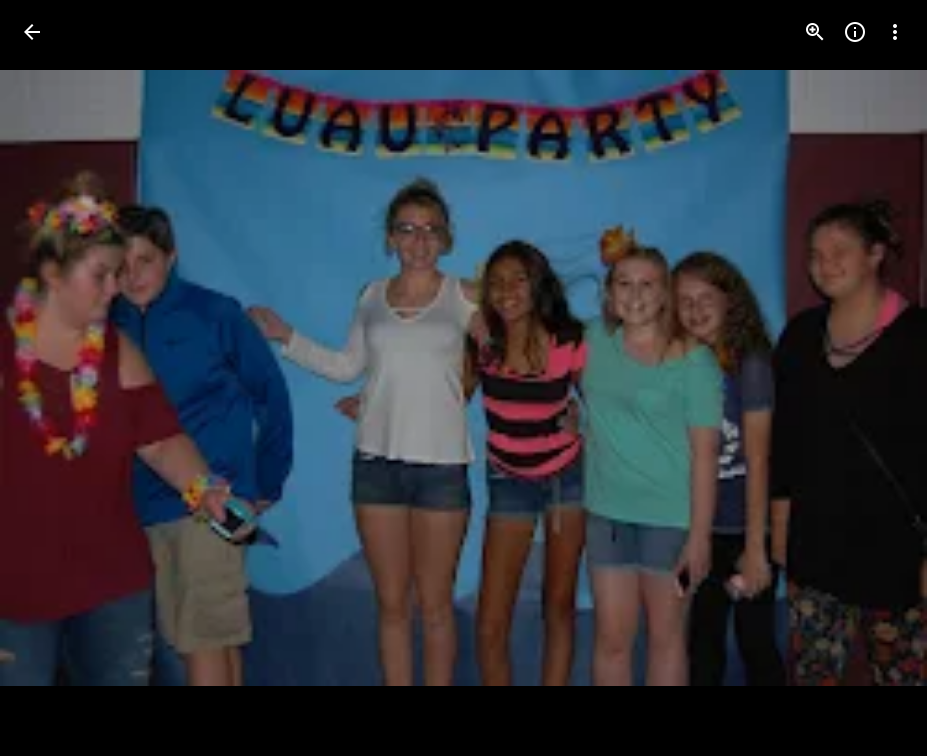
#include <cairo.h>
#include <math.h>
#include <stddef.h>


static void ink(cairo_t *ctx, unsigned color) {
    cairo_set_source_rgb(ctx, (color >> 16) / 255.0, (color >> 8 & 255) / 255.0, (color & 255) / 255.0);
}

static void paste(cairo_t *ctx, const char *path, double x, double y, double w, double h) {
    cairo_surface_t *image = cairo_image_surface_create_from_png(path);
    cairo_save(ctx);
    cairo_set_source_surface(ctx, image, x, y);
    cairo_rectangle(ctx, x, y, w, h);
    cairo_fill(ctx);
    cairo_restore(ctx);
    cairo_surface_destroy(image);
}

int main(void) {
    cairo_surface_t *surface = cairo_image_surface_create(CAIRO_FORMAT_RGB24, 927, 756);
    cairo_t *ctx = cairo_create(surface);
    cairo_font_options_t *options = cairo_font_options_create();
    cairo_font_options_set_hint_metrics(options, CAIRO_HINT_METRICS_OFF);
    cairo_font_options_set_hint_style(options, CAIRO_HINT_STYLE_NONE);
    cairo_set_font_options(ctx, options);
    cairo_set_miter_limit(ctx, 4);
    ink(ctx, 0x000000);
    cairo_paint(ctx);
    paste(ctx, "media/1.png", 24, 24, 16, 16);
    paste(ctx, "media/2.png", 806, 23, 18, 18);
    paste(ctx, "media/3.png", 845, 22, 20, 20);
    paste(ctx, "media/4.png", 893, 24, 4, 16);
    paste(ctx, "media/5.png", 0, 70, 927, 616);
    cairo_surface_write_to_png(surface, "image.png");
    cairo_font_options_destroy(options);
    cairo_destroy(ctx);
    cairo_surface_destroy(surface);
    return 0;
}
